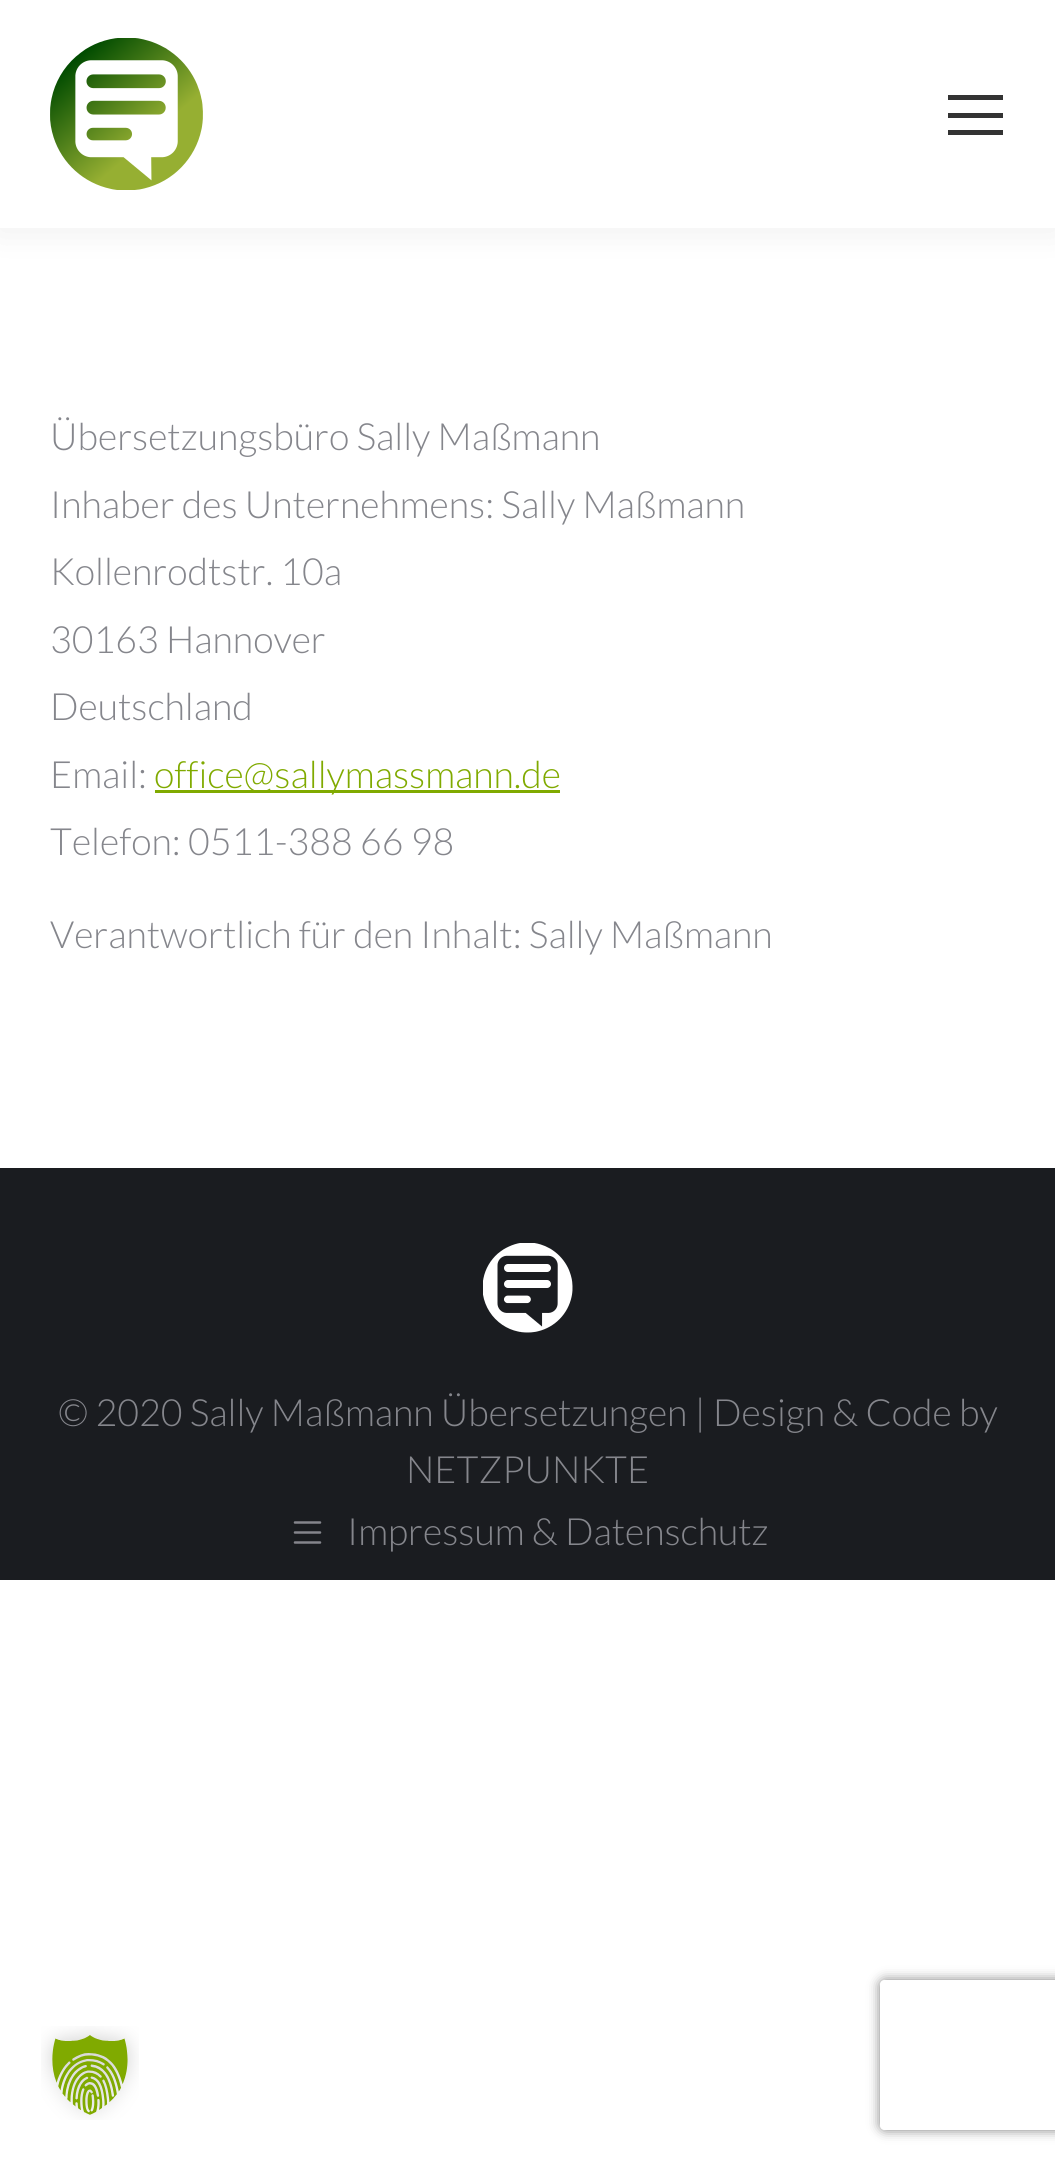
#include <cairo.h>
#include <math.h>
#include <stddef.h>

typedef struct { double x, y; const char *s; } line_t;
typedef struct { double x, y, w, h; unsigned color; } box_t;

static void ink(cairo_t *ctx, unsigned color) {
    cairo_set_source_rgb(ctx, (color >> 16) / 255.0, (color >> 8 & 255) / 255.0, (color & 255) / 255.0);
}

static void round_path(cairo_t *ctx, double x, double y, double w, double h, double r) {
    cairo_new_sub_path(ctx);
    cairo_arc(ctx, x + w - r, y + h - r, r, 0, M_PI / 2);
    cairo_arc(ctx, x + r, y + h - r, r, M_PI / 2, M_PI);
    cairo_arc(ctx, x + r, y + r, r, M_PI, 1.5 * M_PI);
    cairo_arc(ctx, x + w - r, y + r, r, 1.5 * M_PI, 2 * M_PI);
    cairo_close_path(ctx);
}

static void blur_box(cairo_t *ctx, double x, double y, double w, double h, double r, double blur, double alpha) {
    cairo_push_group_with_content(ctx, CAIRO_CONTENT_ALPHA);
    cairo_set_operator(ctx, CAIRO_OPERATOR_SOURCE);
    for (int i = 15; i >= -15 && fmin(w, h) + blur * i / 3 > 0; i -= 2) {
        double e = blur * i / 6;
        cairo_set_source_rgba(ctx, 0, 0, 0, alpha * erfc((i - 1) / 8.5) / 2);
        round_path(ctx, x - e, y - e, w + 2 * e, h + 2 * e, fmax(0, fmin(r + e + blur * .6, fmin(w, h) / 2 + e)));
        cairo_fill(ctx);
    }
    cairo_pattern_t *soft = cairo_pop_group(ctx);
    cairo_mask(ctx, soft);
    cairo_pattern_destroy(soft);
}

static void paste(cairo_t *ctx, const char *path, double x, double y, double w, double h) {
    cairo_surface_t *image = cairo_image_surface_create_from_png(path);
    cairo_save(ctx);
    cairo_set_source_surface(ctx, image, x, y);
    cairo_rectangle(ctx, x, y, w, h);
    cairo_fill(ctx);
    cairo_restore(ctx);
    cairo_surface_destroy(image);
}

int main(void) {
    cairo_surface_t *surface = cairo_image_surface_create(CAIRO_FORMAT_RGB24, 1055, 2163);
    cairo_t *ctx = cairo_create(surface);
    cairo_font_options_t *options = cairo_font_options_create();
    cairo_font_options_set_hint_metrics(options, CAIRO_HINT_METRICS_OFF);
    cairo_font_options_set_hint_style(options, CAIRO_HINT_STYLE_NONE);
    cairo_set_font_options(ctx, options);
    cairo_set_miter_limit(ctx, 4);
    ink(ctx, 0xFFFFFF);
    cairo_paint(ctx);
    ink(ctx, 0x000000);
    blur_box(ctx, -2, -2, 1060, 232, 0, 19, 0.07);
    ink(ctx, 0xFFFFFF);
    cairo_rectangle(ctx, 0, 0, 1055, 228);
    cairo_fill(ctx);
    paste(ctx, "media/1.png", 50, 38, 153, 152);
    {
        static const box_t items[] = {
            {948, 95, 55, 5, 0x333333},
            {948, 113, 55, 5, 0x333333},
            {948, 130, 55, 5, 0x333333},
        };
        for (size_t i = 0; i < sizeof items / sizeof *items; i++) {
            ink(ctx, items[i].color);
            cairo_rectangle(ctx, items[i].x, items[i].y, items[i].w, items[i].h);
            cairo_fill(ctx);
        }
    }
    cairo_select_font_face(ctx, "Lato Light", CAIRO_FONT_SLANT_NORMAL, CAIRO_FONT_WEIGHT_NORMAL);
    cairo_set_font_size(ctx, 37.5);
    ink(ctx, 0x85868C);
    {
        static const line_t items[] = {
            {50, 450, "Übersetzungsbüro Sally Maßmann"},
            {50, 518, "Inhaber des Unternehmens: Sally Maßmann"},
            {50, 585, "Kollenrodtstr. 10a"},
            {50, 653, "30163 Hannover"},
            {50, 720, "Deutschland"},
            {50, 788, "Email:"},
        };
        for (size_t i = 0; i < sizeof items / sizeof *items; i++) {
            cairo_move_to(ctx, items[i].x, items[i].y);
            cairo_show_text(ctx, items[i].s);
        }
    }
    ink(ctx, 0x80AA00);
    cairo_rectangle(ctx, 155, 790, 405, 3);
    cairo_fill(ctx);
    cairo_move_to(ctx, 154, 788);
    cairo_show_text(ctx, "office@sallymassmann.de");
    ink(ctx, 0x85868C);
    cairo_move_to(ctx, 50, 855);
    cairo_show_text(ctx, "Telefon: 0511-388 66 98");
    cairo_move_to(ctx, 50, 948);
    cairo_show_text(ctx, "Verantwortlich für den Inhalt: Sally Maßmann");
    ink(ctx, 0x1A1C20);
    cairo_rectangle(ctx, 0, 1168, 1055, 412);
    cairo_fill(ctx);
    paste(ctx, "media/2.png", 483, 1243, 90, 90);
    ink(ctx, 0x85868C);
    cairo_move_to(ctx, 58, 1426);
    cairo_show_text(ctx, "© 2020 Sally Maßmann Übersetzungen | Design & Code by");
    cairo_move_to(ctx, 406, 1483);
    cairo_show_text(ctx, "NETZPUNKTE");
    paste(ctx, "media/3.png", 293, 1521, 29, 23);
    cairo_move_to(ctx, 347, 1545);
    cairo_show_text(ctx, "Impressum & Datenschutz");
    paste(ctx, "media/4.png", 41, 2026, 98, 94);
    cairo_save(ctx);
    cairo_set_fill_rule(ctx, CAIRO_FILL_RULE_EVEN_ODD);
    cairo_new_path(ctx);
    cairo_move_to(ctx, 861, 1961);
    cairo_line_to(ctx, 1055, 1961);
    cairo_line_to(ctx, 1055, 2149);
    cairo_line_to(ctx, 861, 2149);
    cairo_close_path(ctx);
    cairo_move_to(ctx, 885, 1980);
    cairo_line_to(ctx, 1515, 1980);
    cairo_curve_to(ctx, 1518, 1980, 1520, 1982, 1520, 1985);
    cairo_line_to(ctx, 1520, 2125);
    cairo_curve_to(ctx, 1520, 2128, 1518, 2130, 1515, 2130);
    cairo_line_to(ctx, 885, 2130);
    cairo_curve_to(ctx, 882, 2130, 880, 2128, 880, 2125);
    cairo_line_to(ctx, 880, 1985);
    cairo_curve_to(ctx, 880, 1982, 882, 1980, 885, 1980);
    cairo_close_path(ctx);
    cairo_clip(ctx);
    ink(ctx, 0x808080);
    blur_box(ctx, 880, 1980, 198, 150, 5, 6, 1);
    cairo_restore(ctx);
    cairo_surface_write_to_png(surface, "image.png");
    cairo_font_options_destroy(options);
    cairo_destroy(ctx);
    cairo_surface_destroy(surface);
    return 0;
}
